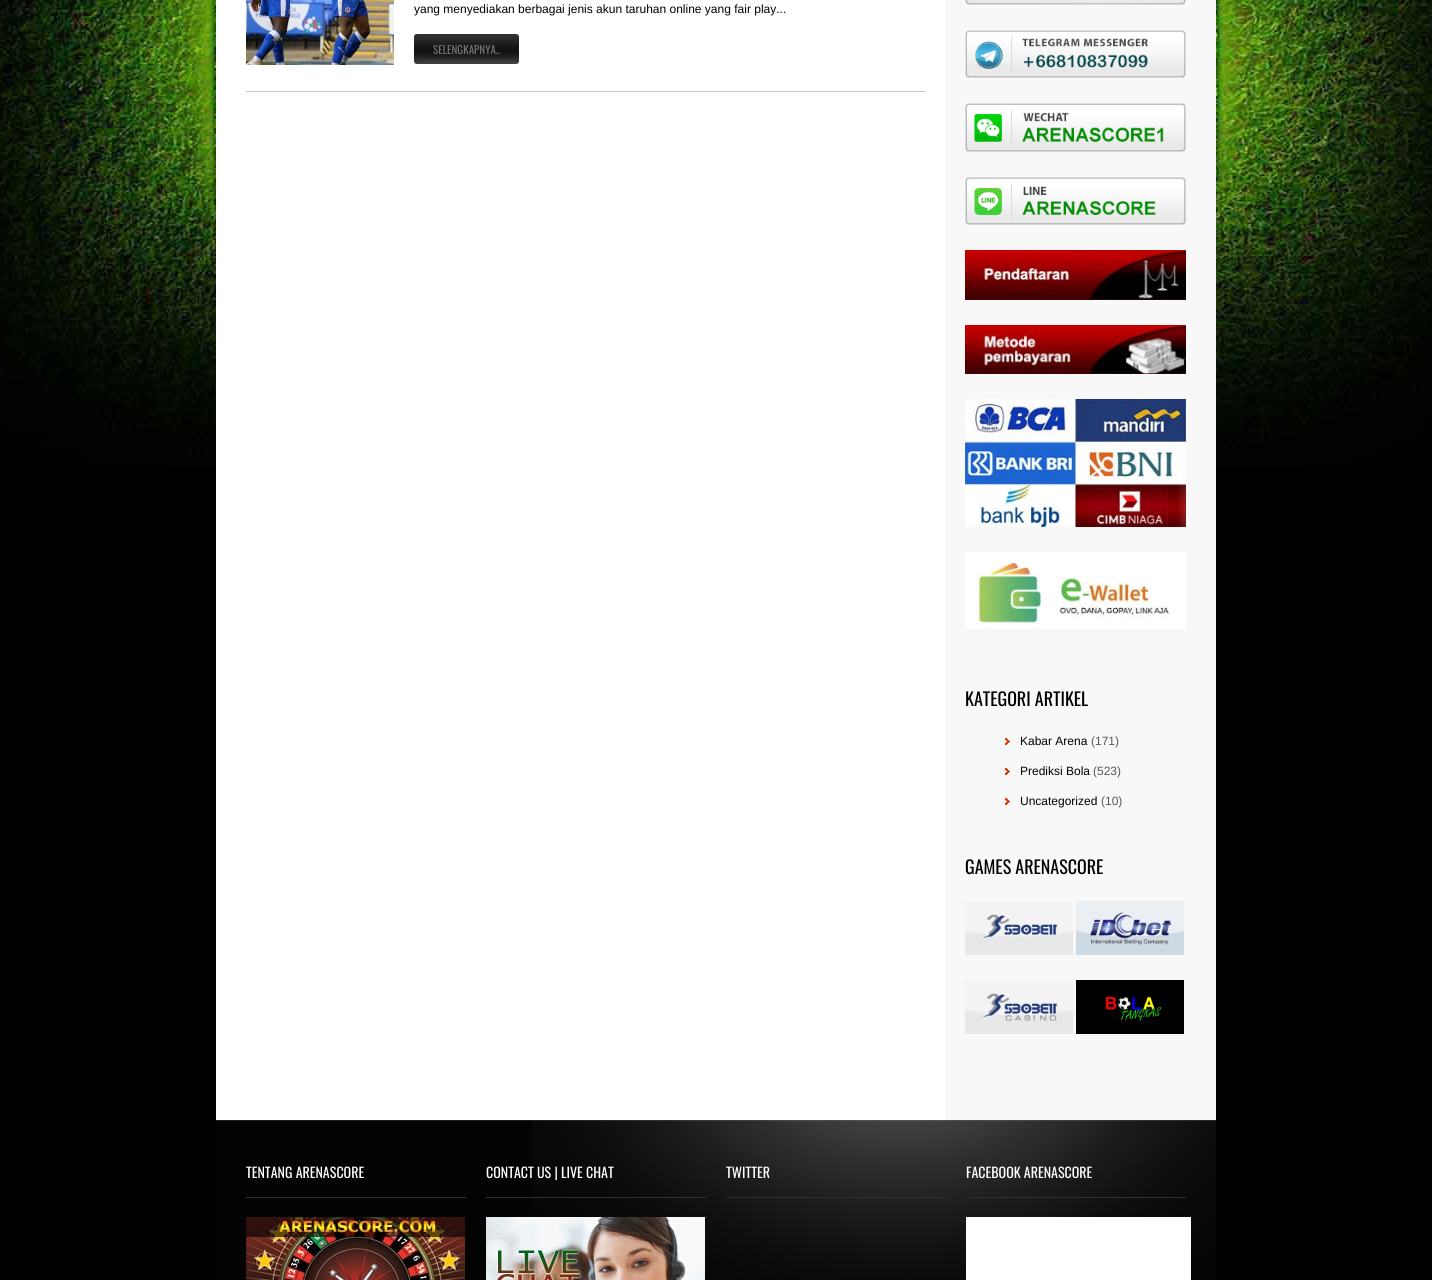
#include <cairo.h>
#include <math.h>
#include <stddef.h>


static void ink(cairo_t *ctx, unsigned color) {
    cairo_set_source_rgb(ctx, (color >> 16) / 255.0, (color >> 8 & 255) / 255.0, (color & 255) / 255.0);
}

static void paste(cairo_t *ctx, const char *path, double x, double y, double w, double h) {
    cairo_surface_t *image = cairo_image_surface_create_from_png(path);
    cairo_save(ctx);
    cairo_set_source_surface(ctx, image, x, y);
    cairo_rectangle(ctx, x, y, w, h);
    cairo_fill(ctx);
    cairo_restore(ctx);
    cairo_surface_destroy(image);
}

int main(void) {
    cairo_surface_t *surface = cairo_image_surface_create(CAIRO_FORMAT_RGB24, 1432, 1280);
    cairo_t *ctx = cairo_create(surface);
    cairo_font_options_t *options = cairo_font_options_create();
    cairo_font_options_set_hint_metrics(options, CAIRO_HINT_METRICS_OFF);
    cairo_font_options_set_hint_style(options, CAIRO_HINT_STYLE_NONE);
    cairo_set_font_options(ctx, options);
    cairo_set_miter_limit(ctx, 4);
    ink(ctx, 0x000000);
    cairo_paint(ctx);
    paste(ctx, "media/1.png", 0, 0, 1432, 467);
    ink(ctx, 0xFFFFFF);
    cairo_rectangle(ctx, 216, 0, 729, 1120);
    cairo_fill(ctx);
    ink(ctx, 0xCACACA);
    cairo_rectangle(ctx, 246, 91, 680, 1);
    cairo_fill(ctx);
    paste(ctx, "media/2.png", 246, 0, 148, 65);
    cairo_select_font_face(ctx, "Liberation Sans", CAIRO_FONT_SLANT_NORMAL, CAIRO_FONT_WEIGHT_NORMAL);
    cairo_set_font_size(ctx, 12);
    ink(ctx, 0x000000);
    cairo_move_to(ctx, 414, 13);
    cairo_show_text(ctx, "yang menyediakan berbagai jenis akun taruhan online yang fair play...");
    paste(ctx, "media/3.png", 414, 34, 105, 30);
    cairo_select_font_face(ctx, "Oswald", CAIRO_FONT_SLANT_NORMAL, CAIRO_FONT_WEIGHT_NORMAL);
    cairo_set_font_size(ctx, 11);
    ink(ctx, 0x767676);
    cairo_move_to(ctx, 433, 54);
    cairo_show_text(ctx, "SELENGKAPNYA..");
    ink(ctx, 0xF8F8F8);
    cairo_rectangle(ctx, 945, 0, 271, 1120);
    cairo_fill(ctx);
    paste(ctx, "media/4.png", 965, 0, 221, 5);
    paste(ctx, "media/5.png", 965, 30, 221, 48);
    paste(ctx, "media/6.png", 965, 103, 221, 49);
    paste(ctx, "media/7.png", 965, 177, 221, 48);
    paste(ctx, "media/8.png", 965, 250, 221, 50);
    paste(ctx, "media/9.png", 965, 325, 221, 49);
    paste(ctx, "media/10.png", 965, 399, 221, 128);
    paste(ctx, "media/11.png", 965, 552, 221, 77);
    cairo_set_font_size(ctx, 18);
    ink(ctx, 0x000000);
    cairo_move_to(ctx, 965, 706);
    cairo_show_text(ctx, "KATEGORI ARTIKEL");
    paste(ctx, "media/12.png", 1005, 738, 5, 7);
    cairo_select_font_face(ctx, "Liberation Sans", CAIRO_FONT_SLANT_NORMAL, CAIRO_FONT_WEIGHT_NORMAL);
    cairo_set_font_size(ctx, 12);
    cairo_move_to(ctx, 1020, 745);
    cairo_show_text(ctx, "Kabar Arena");
    ink(ctx, 0x565757);
    cairo_move_to(ctx, 1091, 745);
    cairo_show_text(ctx, "(171)");
    paste(ctx, "media/12.png", 1005, 768, 5, 7);
    ink(ctx, 0x000000);
    cairo_move_to(ctx, 1020, 775);
    cairo_show_text(ctx, "Prediksi Bola");
    ink(ctx, 0x565757);
    cairo_move_to(ctx, 1093, 775);
    cairo_show_text(ctx, "(523)");
    paste(ctx, "media/12.png", 1005, 798, 5, 7);
    ink(ctx, 0x000000);
    cairo_move_to(ctx, 1020, 805);
    cairo_show_text(ctx, "Uncategorized");
    ink(ctx, 0x565757);
    cairo_move_to(ctx, 1101, 805);
    cairo_show_text(ctx, "(10)");
    cairo_select_font_face(ctx, "Oswald", CAIRO_FONT_SLANT_NORMAL, CAIRO_FONT_WEIGHT_NORMAL);
    cairo_set_font_size(ctx, 18);
    ink(ctx, 0x000000);
    cairo_move_to(ctx, 965, 874);
    cairo_show_text(ctx, "GAMES ARENASCORE");
    paste(ctx, "media/13.png", 965, 901, 108, 54);
    paste(ctx, "media/14.png", 1076, 901, 108, 54);
    paste(ctx, "media/15.png", 965, 980, 108, 54);
    paste(ctx, "media/16.png", 1076, 980, 108, 54);
    ink(ctx, 0x030303);
    cairo_rectangle(ctx, 216, 1120, 1000, 160);
    cairo_fill(ctx);
    paste(ctx, "media/17.png", 531, 1120, 685, 160);
    cairo_set_source_rgba(ctx, 1, 1, 1, 0.1);
    cairo_rectangle(ctx, 216, 1120, 1000, 1);
    cairo_fill(ctx);
    ink(ctx, 0x303030);
    cairo_rectangle(ctx, 246, 1197, 220, 1);
    cairo_fill(ctx);
    cairo_set_font_size(ctx, 14);
    ink(ctx, 0xFFFFFF);
    cairo_move_to(ctx, 246, 1178);
    cairo_show_text(ctx, "TENTANG ARENASCORE");
    paste(ctx, "media/18.png", 246, 1217, 219, 63);
    ink(ctx, 0x303030);
    cairo_rectangle(ctx, 486, 1197, 220, 1);
    cairo_fill(ctx);
    ink(ctx, 0xFFFFFF);
    cairo_move_to(ctx, 486, 1178);
    cairo_show_text(ctx, "CONTACT US | LIVE CHAT");
    paste(ctx, "media/19.png", 486, 1217, 219, 63);
    ink(ctx, 0x303030);
    cairo_rectangle(ctx, 726, 1197, 220, 1);
    cairo_fill(ctx);
    ink(ctx, 0xFFFFFF);
    cairo_move_to(ctx, 726, 1178);
    cairo_show_text(ctx, "TWITTER");
    ink(ctx, 0x303030);
    cairo_rectangle(ctx, 966, 1197, 220, 1);
    cairo_fill(ctx);
    ink(ctx, 0xFFFFFF);
    cairo_move_to(ctx, 966, 1178);
    cairo_show_text(ctx, "FACEBOOK ARENASCORE");
    cairo_rectangle(ctx, 966, 1217, 225, 63);
    cairo_fill(ctx);
    cairo_surface_write_to_png(surface, "image.png");
    cairo_font_options_destroy(options);
    cairo_destroy(ctx);
    cairo_surface_destroy(surface);
    return 0;
}
